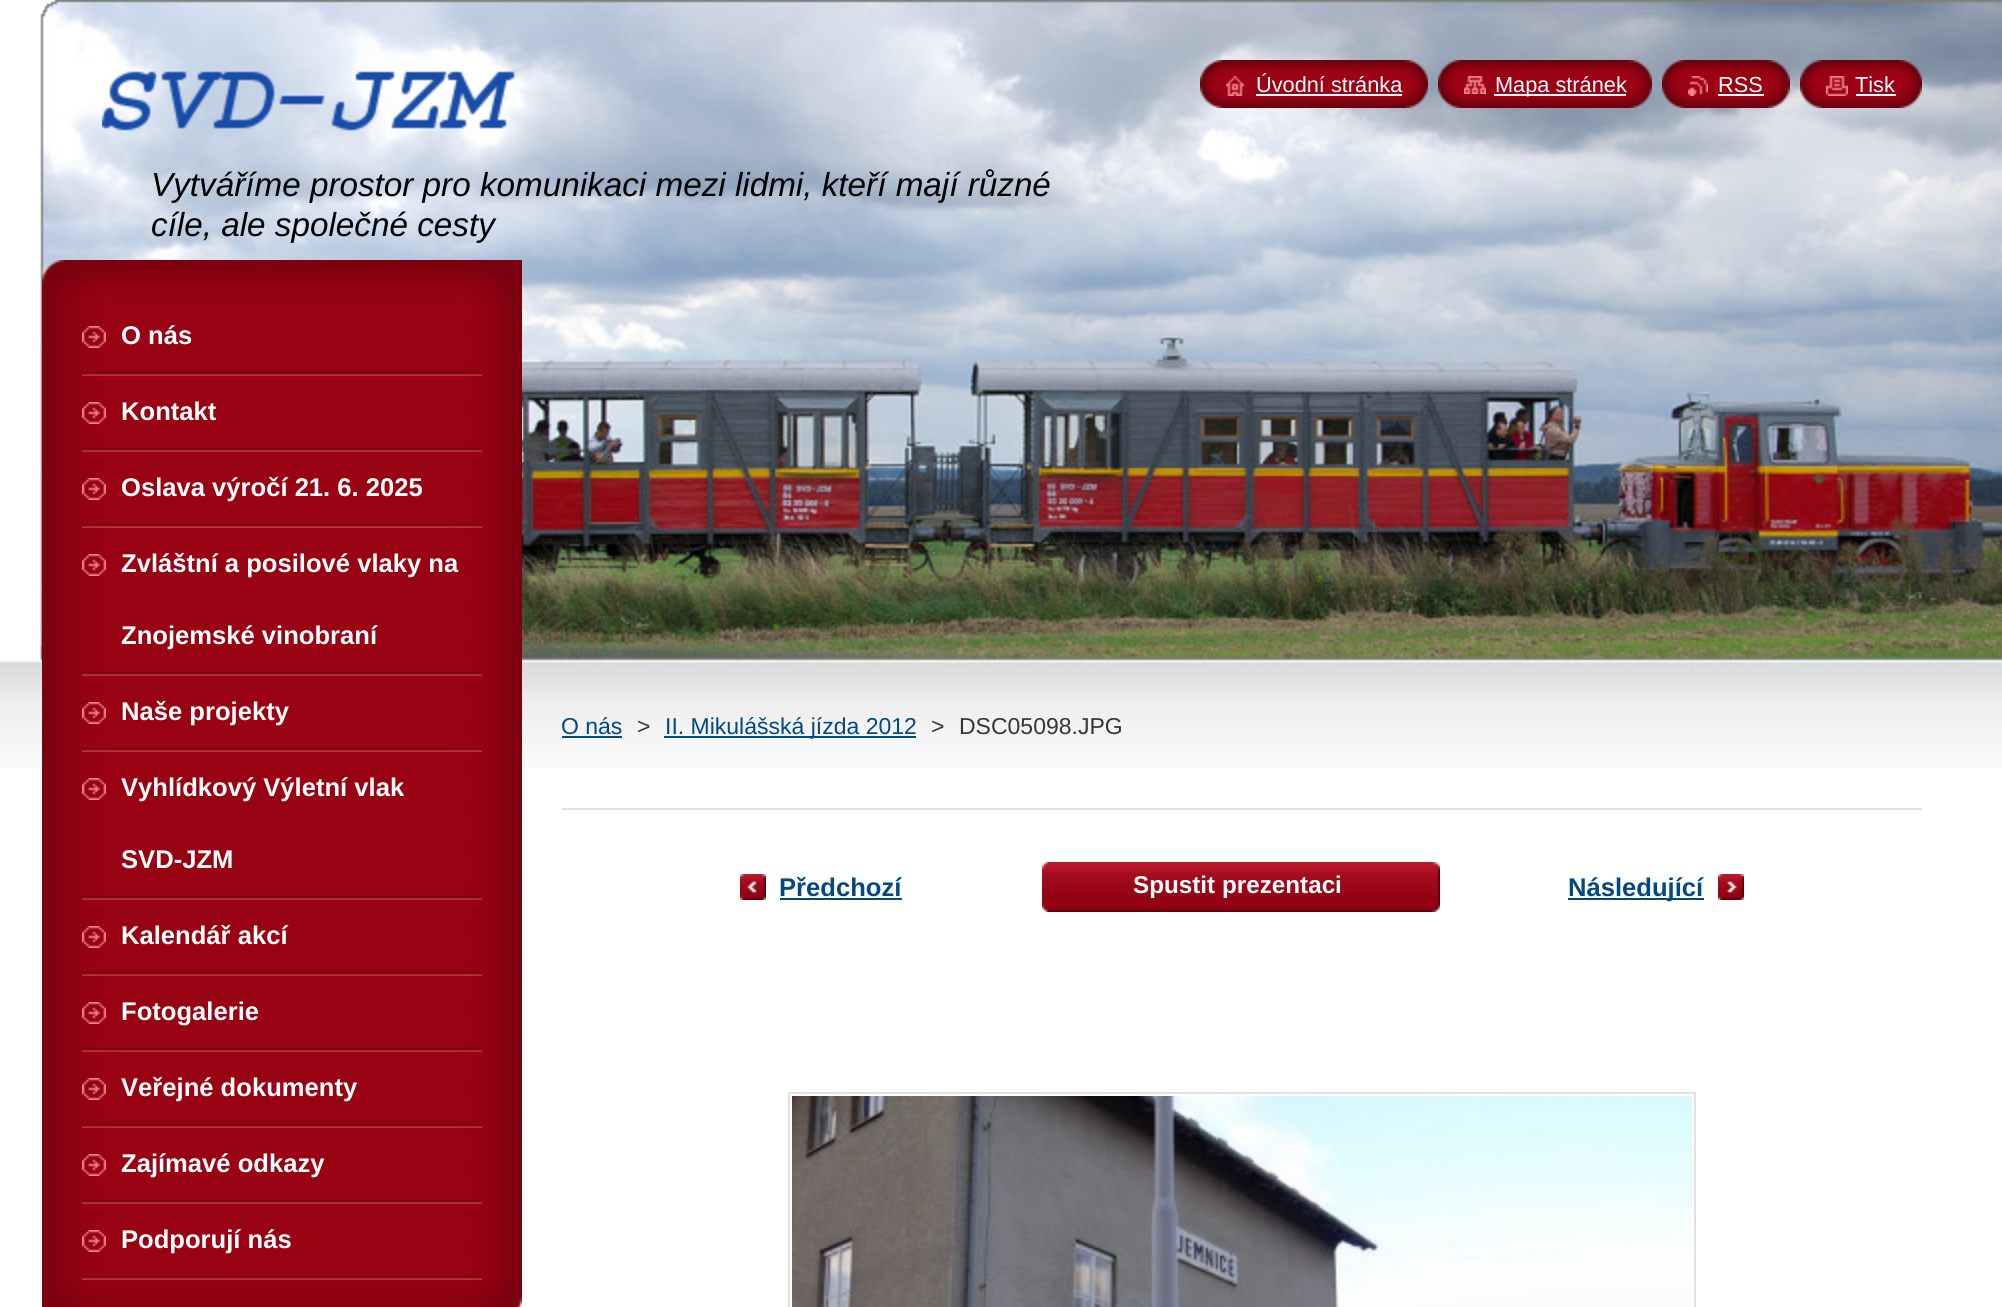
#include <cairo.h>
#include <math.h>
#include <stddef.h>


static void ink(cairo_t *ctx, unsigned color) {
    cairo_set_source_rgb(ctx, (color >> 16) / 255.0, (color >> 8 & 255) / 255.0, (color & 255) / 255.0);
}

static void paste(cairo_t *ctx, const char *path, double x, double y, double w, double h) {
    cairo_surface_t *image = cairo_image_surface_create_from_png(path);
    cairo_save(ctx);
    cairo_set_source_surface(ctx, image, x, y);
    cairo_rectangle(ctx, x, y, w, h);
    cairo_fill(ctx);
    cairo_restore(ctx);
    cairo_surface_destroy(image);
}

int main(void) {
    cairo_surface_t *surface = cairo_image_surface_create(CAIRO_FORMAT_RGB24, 2002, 1307);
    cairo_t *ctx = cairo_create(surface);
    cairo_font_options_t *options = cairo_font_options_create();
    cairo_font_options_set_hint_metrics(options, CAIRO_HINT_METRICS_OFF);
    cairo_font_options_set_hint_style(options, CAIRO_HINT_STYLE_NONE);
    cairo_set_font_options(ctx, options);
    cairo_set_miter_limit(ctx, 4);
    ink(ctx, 0xFFFFFF);
    cairo_paint(ctx);
    paste(ctx, "media/1.png", 0, 0, 2002, 768);
    paste(ctx, "media/2.png", 1200, 60, 26, 48);
    paste(ctx, "media/3.png", 1226, 60, 202, 48);
    paste(ctx, "media/4.png", 1226, 76, 18, 20);
    cairo_select_font_face(ctx, "Liberation Sans", CAIRO_FONT_SLANT_NORMAL, CAIRO_FONT_WEIGHT_NORMAL);
    cairo_set_font_size(ctx, 21.75);
    ink(ctx, 0xFFFFFF);
    cairo_move_to(ctx, 1256, 92);
    cairo_show_text(ctx, "Úvodní stránka");
    cairo_rectangle(ctx, 1256, 94, 146, 2);
    cairo_fill(ctx);
    paste(ctx, "media/5.png", 1438, 60, 26, 48);
    paste(ctx, "media/6.png", 1464, 60, 188, 48);
    paste(ctx, "media/7.png", 1464, 76, 22, 18);
    cairo_rectangle(ctx, 1494, 94, 132, 2);
    cairo_fill(ctx);
    cairo_move_to(ctx, 1495, 92);
    cairo_show_text(ctx, "Mapa stránek");
    paste(ctx, "media/8.png", 1662, 60, 26, 48);
    paste(ctx, "media/9.png", 1688, 60, 102, 48);
    paste(ctx, "media/10.png", 1688, 76, 20, 20);
    cairo_move_to(ctx, 1718, 92);
    cairo_show_text(ctx, "RSS");
    cairo_rectangle(ctx, 1718, 94, 46, 2);
    cairo_fill(ctx);
    paste(ctx, "media/11.png", 1800, 60, 26, 48);
    paste(ctx, "media/12.png", 1826, 60, 96, 48);
    paste(ctx, "media/13.png", 1826, 76, 22, 20);
    cairo_move_to(ctx, 1855, 92);
    cairo_show_text(ctx, "Tisk");
    cairo_rectangle(ctx, 1856, 94, 40, 2);
    cairo_fill(ctx);
    paste(ctx, "media/14.png", 102, 71, 413, 60);
    cairo_select_font_face(ctx, "Liberation Sans", CAIRO_FONT_SLANT_ITALIC, CAIRO_FONT_WEIGHT_NORMAL);
    cairo_set_font_size(ctx, 33.25);
    ink(ctx, 0x000000);
    cairo_move_to(ctx, 151, 196);
    cairo_show_text(ctx, "Vytváříme prostor pro komunikaci mezi lidmi, kteří mají různé");
    cairo_move_to(ctx, 151, 236);
    cairo_show_text(ctx, "cíle, ale společné cesty");
    paste(ctx, "media/15.png", 42, 260, 480, 40);
    paste(ctx, "media/16.png", 42, 1280, 480, 27);
    paste(ctx, "media/17.png", 42, 300, 480, 980);
    paste(ctx, "media/18.png", 82, 372, 400, 4);
    paste(ctx, "media/19.png", 82, 326, 24, 22);
    cairo_select_font_face(ctx, "Liberation Sans", CAIRO_FONT_SLANT_NORMAL, CAIRO_FONT_WEIGHT_BOLD);
    cairo_set_font_size(ctx, 25.6);
    ink(ctx, 0xFFFFFF);
    cairo_move_to(ctx, 121, 344);
    cairo_show_text(ctx, "O nás");
    paste(ctx, "media/18.png", 82, 448, 400, 4);
    paste(ctx, "media/19.png", 82, 402, 24, 22);
    cairo_move_to(ctx, 121, 420);
    cairo_show_text(ctx, "Kontakt");
    paste(ctx, "media/18.png", 82, 524, 400, 4);
    paste(ctx, "media/19.png", 82, 478, 24, 22);
    cairo_move_to(ctx, 121, 496);
    cairo_show_text(ctx, "Oslava výročí 21. 6. 2025");
    paste(ctx, "media/18.png", 82, 672, 400, 4);
    paste(ctx, "media/19.png", 82, 554, 24, 22);
    cairo_move_to(ctx, 121, 572);
    cairo_show_text(ctx, "Zvláštní a posilové vlaky na");
    cairo_move_to(ctx, 121, 644);
    cairo_show_text(ctx, "Znojemské vinobraní");
    paste(ctx, "media/18.png", 82, 748, 400, 4);
    paste(ctx, "media/19.png", 82, 702, 24, 22);
    cairo_move_to(ctx, 121, 720);
    cairo_show_text(ctx, "Naše projekty");
    paste(ctx, "media/18.png", 82, 896, 400, 4);
    paste(ctx, "media/19.png", 82, 778, 24, 22);
    cairo_move_to(ctx, 121, 796);
    cairo_show_text(ctx, "Vyhlídkový Výletní vlak");
    cairo_move_to(ctx, 121, 868);
    cairo_show_text(ctx, "SVD-JZM");
    paste(ctx, "media/18.png", 82, 972, 400, 4);
    paste(ctx, "media/19.png", 82, 926, 24, 22);
    cairo_move_to(ctx, 121, 944);
    cairo_show_text(ctx, "Kalendář akcí");
    paste(ctx, "media/18.png", 82, 1048, 400, 4);
    paste(ctx, "media/19.png", 82, 1002, 24, 22);
    cairo_move_to(ctx, 121, 1020);
    cairo_show_text(ctx, "Fotogalerie");
    paste(ctx, "media/18.png", 82, 1124, 400, 4);
    paste(ctx, "media/19.png", 82, 1078, 24, 22);
    cairo_move_to(ctx, 121, 1096);
    cairo_show_text(ctx, "Veřejné dokumenty");
    paste(ctx, "media/18.png", 82, 1200, 400, 4);
    paste(ctx, "media/19.png", 82, 1154, 24, 22);
    cairo_move_to(ctx, 121, 1172);
    cairo_show_text(ctx, "Zajímavé odkazy");
    paste(ctx, "media/18.png", 82, 1276, 400, 4);
    paste(ctx, "media/19.png", 82, 1230, 24, 22);
    cairo_move_to(ctx, 121, 1248);
    cairo_show_text(ctx, "Podporují nás");
    cairo_select_font_face(ctx, "Liberation Sans", CAIRO_FONT_SLANT_NORMAL, CAIRO_FONT_WEIGHT_NORMAL);
    cairo_set_font_size(ctx, 23);
    ink(ctx, 0x024981);
    cairo_move_to(ctx, 561, 734);
    cairo_show_text(ctx, "O nás");
    cairo_rectangle(ctx, 562, 736, 60, 2);
    cairo_fill(ctx);
    ink(ctx, 0x363636);
    cairo_move_to(ctx, 637, 734);
    cairo_show_text(ctx, ">");
    ink(ctx, 0x024981);
    cairo_rectangle(ctx, 664, 736, 252, 2);
    cairo_fill(ctx);
    cairo_move_to(ctx, 665, 734);
    cairo_show_text(ctx, "II. Mikulášská jízda 2012");
    ink(ctx, 0x363636);
    cairo_move_to(ctx, 931, 734);
    cairo_show_text(ctx, ">");
    cairo_move_to(ctx, 959, 734);
    cairo_show_text(ctx, "DSC05098.JPG");
    ink(ctx, 0xE1E1E1);
    cairo_rectangle(ctx, 562, 808, 1360, 2);
    cairo_fill(ctx);
    paste(ctx, "media/20.png", 740, 874, 26, 26);
    cairo_select_font_face(ctx, "Liberation Sans", CAIRO_FONT_SLANT_NORMAL, CAIRO_FONT_WEIGHT_BOLD);
    cairo_set_font_size(ctx, 25.6);
    ink(ctx, 0x024981);
    cairo_move_to(ctx, 779, 896);
    cairo_show_text(ctx, "Předchozí");
    cairo_rectangle(ctx, 780, 898, 122, 2);
    cairo_fill(ctx);
    paste(ctx, "media/21.png", 1042, 862, 6, 50);
    paste(ctx, "media/22.png", 1048, 862, 392, 50);
    cairo_set_font_size(ctx, 24.25);
    ink(ctx, 0xFFFFFF);
    cairo_move_to(ctx, 1133, 893);
    cairo_show_text(ctx, "Spustit prezentaci");
    paste(ctx, "media/23.png", 1718, 874, 26, 26);
    ink(ctx, 0x024981);
    cairo_rectangle(ctx, 1568, 898, 136, 2);
    cairo_fill(ctx);
    cairo_set_font_size(ctx, 25.6);
    cairo_move_to(ctx, 1568, 896);
    cairo_show_text(ctx, "Následující");
    cairo_rectangle(ctx, 789, 1093, 906, 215);
    ink(ctx, 0xE1E1E1);
    cairo_stroke(ctx);
    paste(ctx, "media/24.png", 792, 1096, 900, 211);
    cairo_surface_write_to_png(surface, "image.png");
    cairo_font_options_destroy(options);
    cairo_destroy(ctx);
    cairo_surface_destroy(surface);
    return 0;
}
